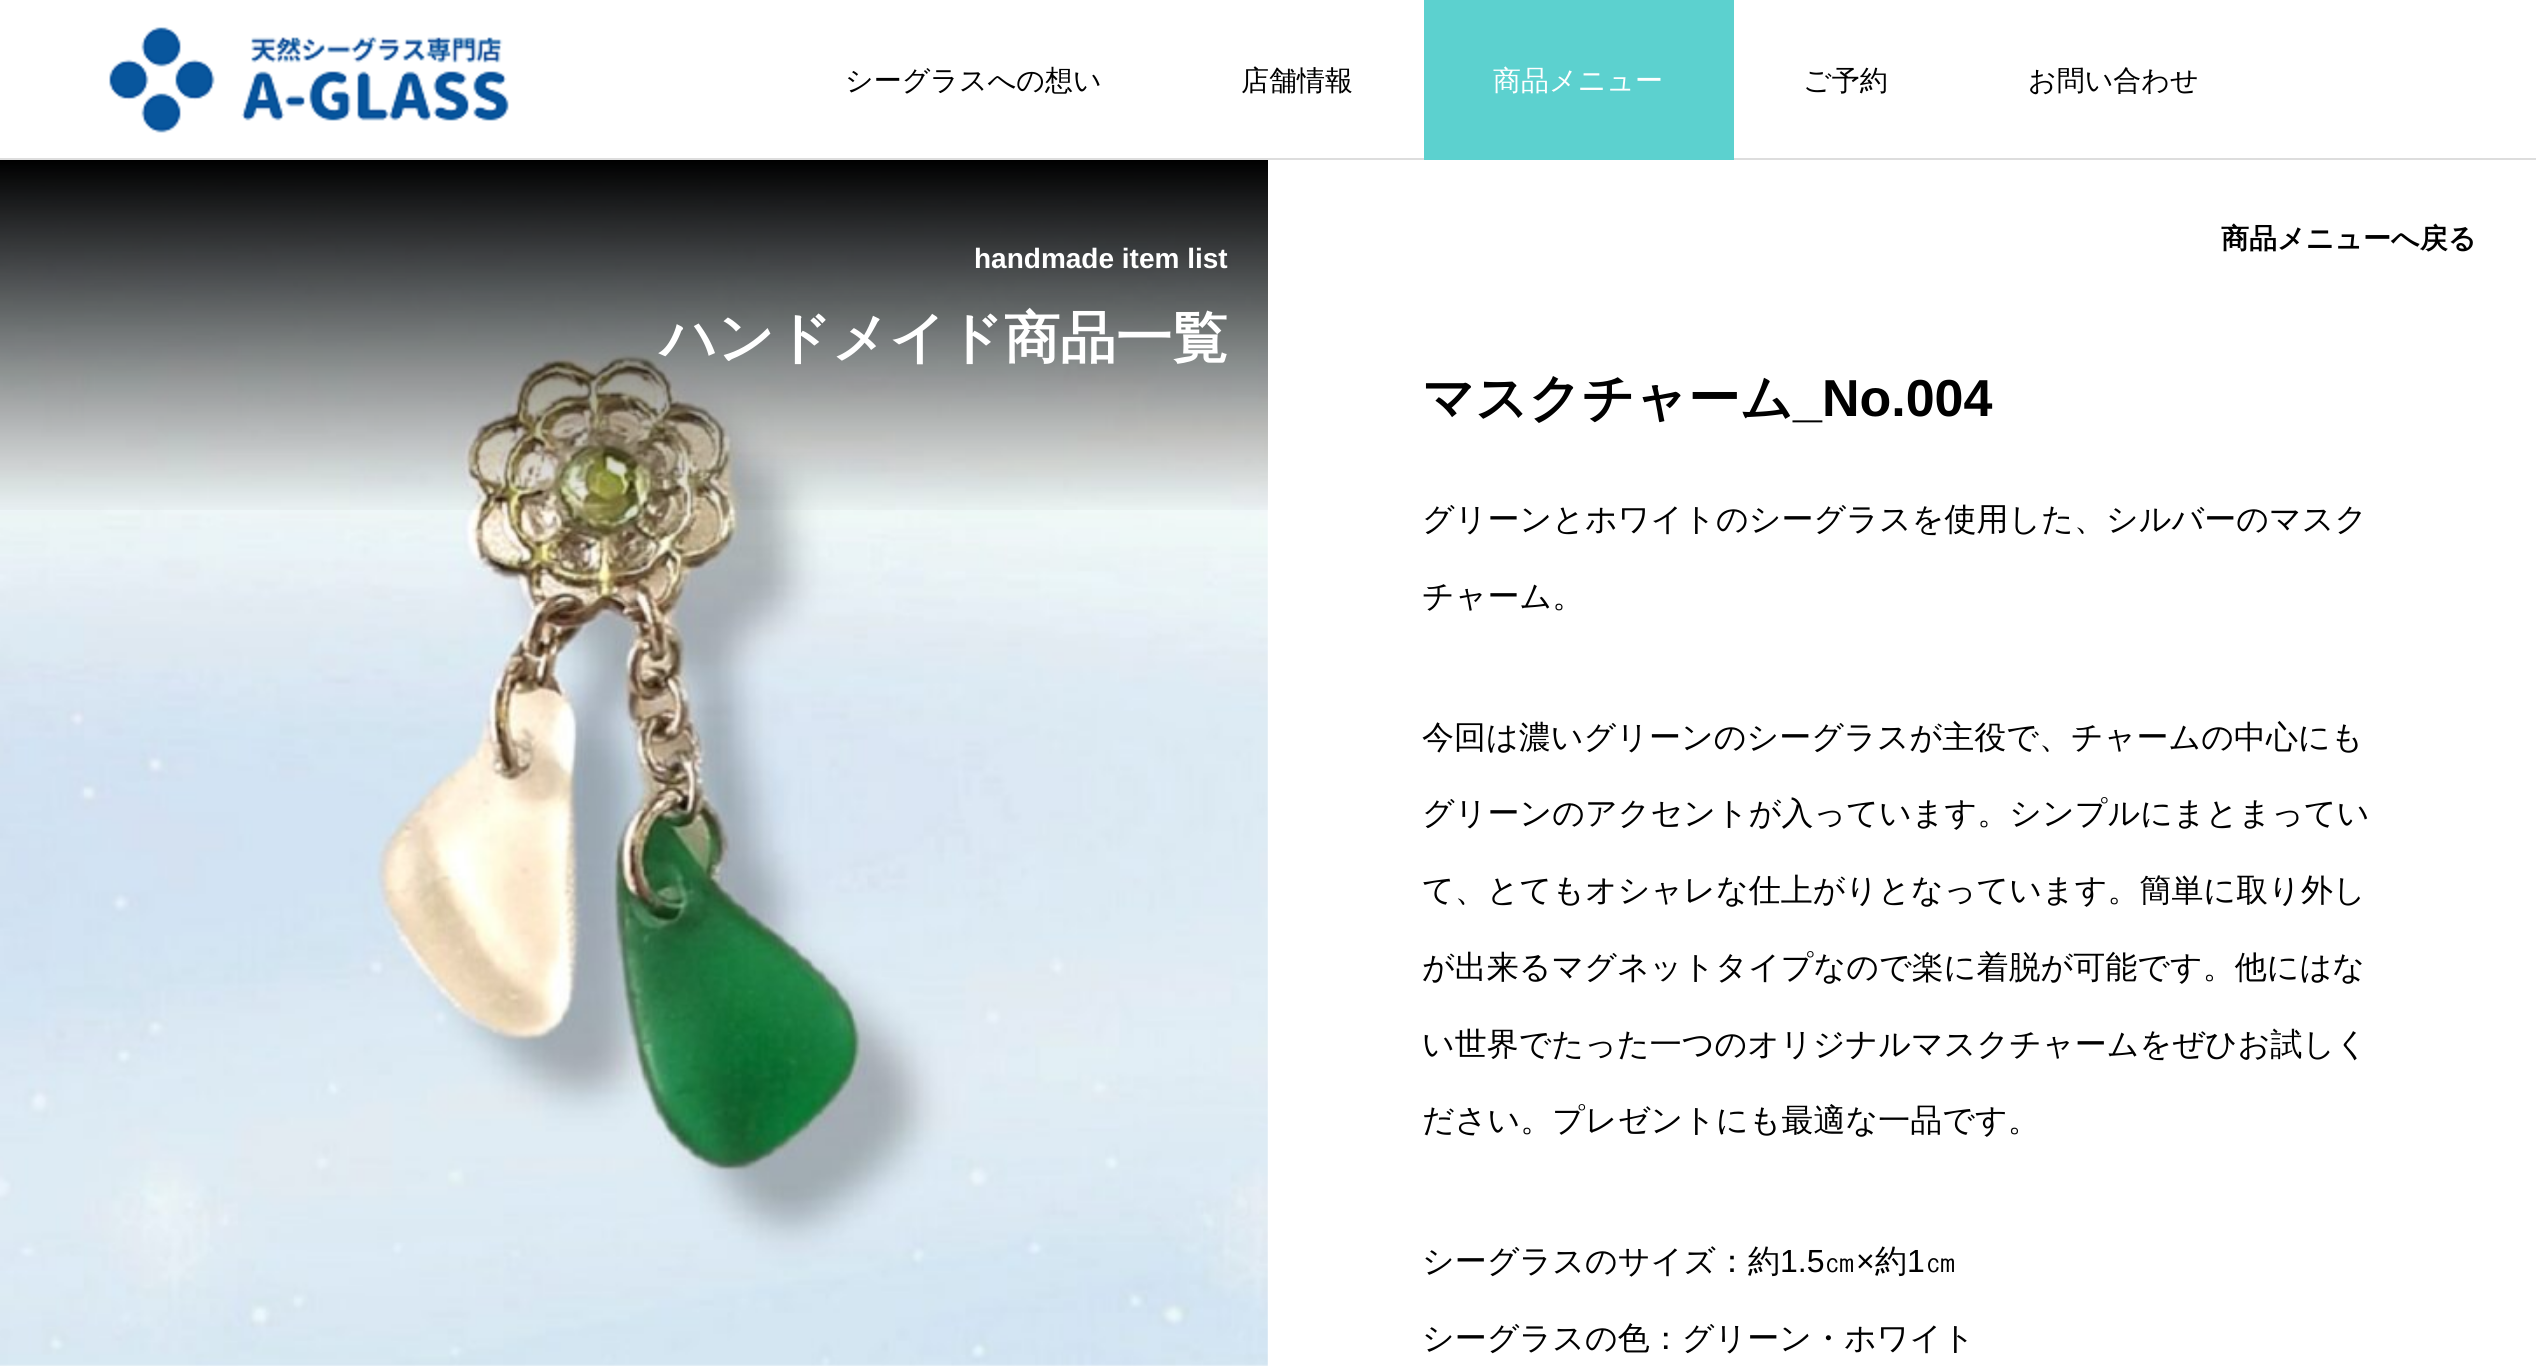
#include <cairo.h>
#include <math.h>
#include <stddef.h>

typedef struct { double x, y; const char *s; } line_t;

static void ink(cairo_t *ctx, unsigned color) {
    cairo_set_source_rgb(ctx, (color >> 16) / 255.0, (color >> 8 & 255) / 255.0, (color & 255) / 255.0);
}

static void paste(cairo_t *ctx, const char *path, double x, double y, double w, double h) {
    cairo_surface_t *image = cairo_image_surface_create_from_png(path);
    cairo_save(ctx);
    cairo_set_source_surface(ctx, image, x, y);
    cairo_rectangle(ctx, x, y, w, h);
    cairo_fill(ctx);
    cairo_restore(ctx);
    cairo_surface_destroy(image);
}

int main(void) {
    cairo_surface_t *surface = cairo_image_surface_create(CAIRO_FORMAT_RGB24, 2536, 1366);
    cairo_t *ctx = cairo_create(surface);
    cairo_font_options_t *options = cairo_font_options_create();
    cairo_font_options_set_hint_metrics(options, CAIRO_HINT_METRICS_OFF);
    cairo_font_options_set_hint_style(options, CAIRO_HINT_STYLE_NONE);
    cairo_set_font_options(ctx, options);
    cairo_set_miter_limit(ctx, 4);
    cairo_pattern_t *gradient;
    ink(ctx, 0xFFFFFF);
    cairo_paint(ctx);
    ink(ctx, 0xDDDDDD);
    cairo_rectangle(ctx, 0, 158, 2536, 2);
    cairo_fill(ctx);
    paste(ctx, "media/1.png", 109, 27, 400, 106);
    cairo_select_font_face(ctx, "WenQuanYi Zen Hei Medium", CAIRO_FONT_SLANT_NORMAL, CAIRO_FONT_WEIGHT_NORMAL);
    cairo_set_font_size(ctx, 28);
    ink(ctx, 0x000000);
    cairo_move_to(ctx, 845, 90);
    cairo_show_text(ctx, "シーグラスへの想い");
    cairo_move_to(ctx, 1241, 90);
    cairo_show_text(ctx, "店舗情報");
    ink(ctx, 0x5CD1CF);
    cairo_rectangle(ctx, 1424, 0, 310, 160);
    cairo_fill(ctx);
    ink(ctx, 0xFFFFFF);
    cairo_move_to(ctx, 1493, 90);
    cairo_show_text(ctx, "商品メニュー");
    ink(ctx, 0x000000);
    cairo_move_to(ctx, 1803, 90);
    cairo_show_text(ctx, "ご予約");
    cairo_move_to(ctx, 2028, 90);
    cairo_show_text(ctx, "お問い合わせ");
    paste(ctx, "media/2.png", 0, 162, 1268, 1204);
    gradient = cairo_pattern_create_linear(634, 160, 634, 518);
    cairo_pattern_add_color_stop_rgba(gradient, 0, 0, 0, 0, 1);
    cairo_pattern_add_color_stop_rgba(gradient, 1, 0, 0, 0, 0);
    cairo_set_source(ctx, gradient);
    cairo_pattern_destroy(gradient);
    cairo_rectangle(ctx, 0, 160, 1268, 350);
    cairo_fill(ctx);
    cairo_select_font_face(ctx, "Liberation Sans", CAIRO_FONT_SLANT_NORMAL, CAIRO_FONT_WEIGHT_BOLD);
    ink(ctx, 0xFFFFFF);
    cairo_move_to(ctx, 974, 268);
    cairo_show_text(ctx, "handmade item list");
    cairo_select_font_face(ctx, "WenQuanYi Zen Hei", CAIRO_FONT_SLANT_NORMAL, CAIRO_FONT_WEIGHT_BOLD);
    cairo_set_font_size(ctx, 56);
    cairo_move_to(ctx, 660, 357);
    cairo_show_text(ctx, "ハンドメイド商品一覧");
    cairo_set_font_size(ctx, 28);
    ink(ctx, 0x000000);
    cairo_move_to(ctx, 2221, 248);
    cairo_show_text(ctx, "商品メニューへ戻る");
    cairo_set_font_size(ctx, 52);
    cairo_move_to(ctx, 1422, 416);
    cairo_show_text(ctx, "マスクチャーム");
    cairo_select_font_face(ctx, "Liberation Sans", CAIRO_FONT_SLANT_NORMAL, CAIRO_FONT_WEIGHT_BOLD);
    cairo_move_to(ctx, 1793, 416);
    cairo_show_text(ctx, "_No.004");
    cairo_select_font_face(ctx, "WenQuanYi Zen Hei Medium", CAIRO_FONT_SLANT_NORMAL, CAIRO_FONT_WEIGHT_NORMAL);
    cairo_set_font_size(ctx, 32);
    {
        static const line_t items[] = {
            {1422, 530, "グリーンとホワイトのシーグラスを使用した、シルバーのマスク"},
            {1422, 607, "チャーム。"},
            {1422, 748, "今回は濃いグリーンのシーグラスが主役で、チャームの中心にも"},
            {1422, 824, "グリーンのアクセントが入っています。シンプルにまとまってい"},
            {1422, 901, "て、とてもオシャレな仕上がりとなっています。簡単に取り外し"},
            {1422, 978, "が出来るマグネットタイプなので楽に着脱が可能です。他にはな"},
            {1422, 1055, "い世界でたった一つのオリジナルマスクチャームをぜひお試しく"},
            {1422, 1131, "ださい。プレゼントにも最適な一品です。"},
            {1422, 1272, "シーグラスのサイズ：約"},
        };
        for (size_t i = 0; i < sizeof items / sizeof *items; i++) {
            cairo_move_to(ctx, items[i].x, items[i].y);
            cairo_show_text(ctx, items[i].s);
        }
    }
    cairo_select_font_face(ctx, "Liberation Sans", CAIRO_FONT_SLANT_NORMAL, CAIRO_FONT_WEIGHT_NORMAL);
    cairo_move_to(ctx, 1780, 1272);
    cairo_show_text(ctx, "1.5");
    cairo_select_font_face(ctx, "WenQuanYi Zen Hei Medium", CAIRO_FONT_SLANT_NORMAL, CAIRO_FONT_WEIGHT_NORMAL);
    cairo_move_to(ctx, 1824, 1272);
    cairo_show_text(ctx, "㎝");
    cairo_select_font_face(ctx, "Liberation Sans", CAIRO_FONT_SLANT_NORMAL, CAIRO_FONT_WEIGHT_NORMAL);
    cairo_move_to(ctx, 1856, 1272);
    cairo_show_text(ctx, "×");
    cairo_select_font_face(ctx, "WenQuanYi Zen Hei Medium", CAIRO_FONT_SLANT_NORMAL, CAIRO_FONT_WEIGHT_NORMAL);
    cairo_move_to(ctx, 1875, 1272);
    cairo_show_text(ctx, "約");
    cairo_select_font_face(ctx, "Liberation Sans", CAIRO_FONT_SLANT_NORMAL, CAIRO_FONT_WEIGHT_NORMAL);
    cairo_move_to(ctx, 1907, 1272);
    cairo_show_text(ctx, "1");
    cairo_select_font_face(ctx, "WenQuanYi Zen Hei Medium", CAIRO_FONT_SLANT_NORMAL, CAIRO_FONT_WEIGHT_NORMAL);
    cairo_move_to(ctx, 1925, 1272);
    cairo_show_text(ctx, "㎝");
    cairo_move_to(ctx, 1422, 1349);
    cairo_show_text(ctx, "シーグラスの色：グリーン・ホワイト");
    cairo_surface_write_to_png(surface, "image.png");
    cairo_font_options_destroy(options);
    cairo_destroy(ctx);
    cairo_surface_destroy(surface);
    return 0;
}
